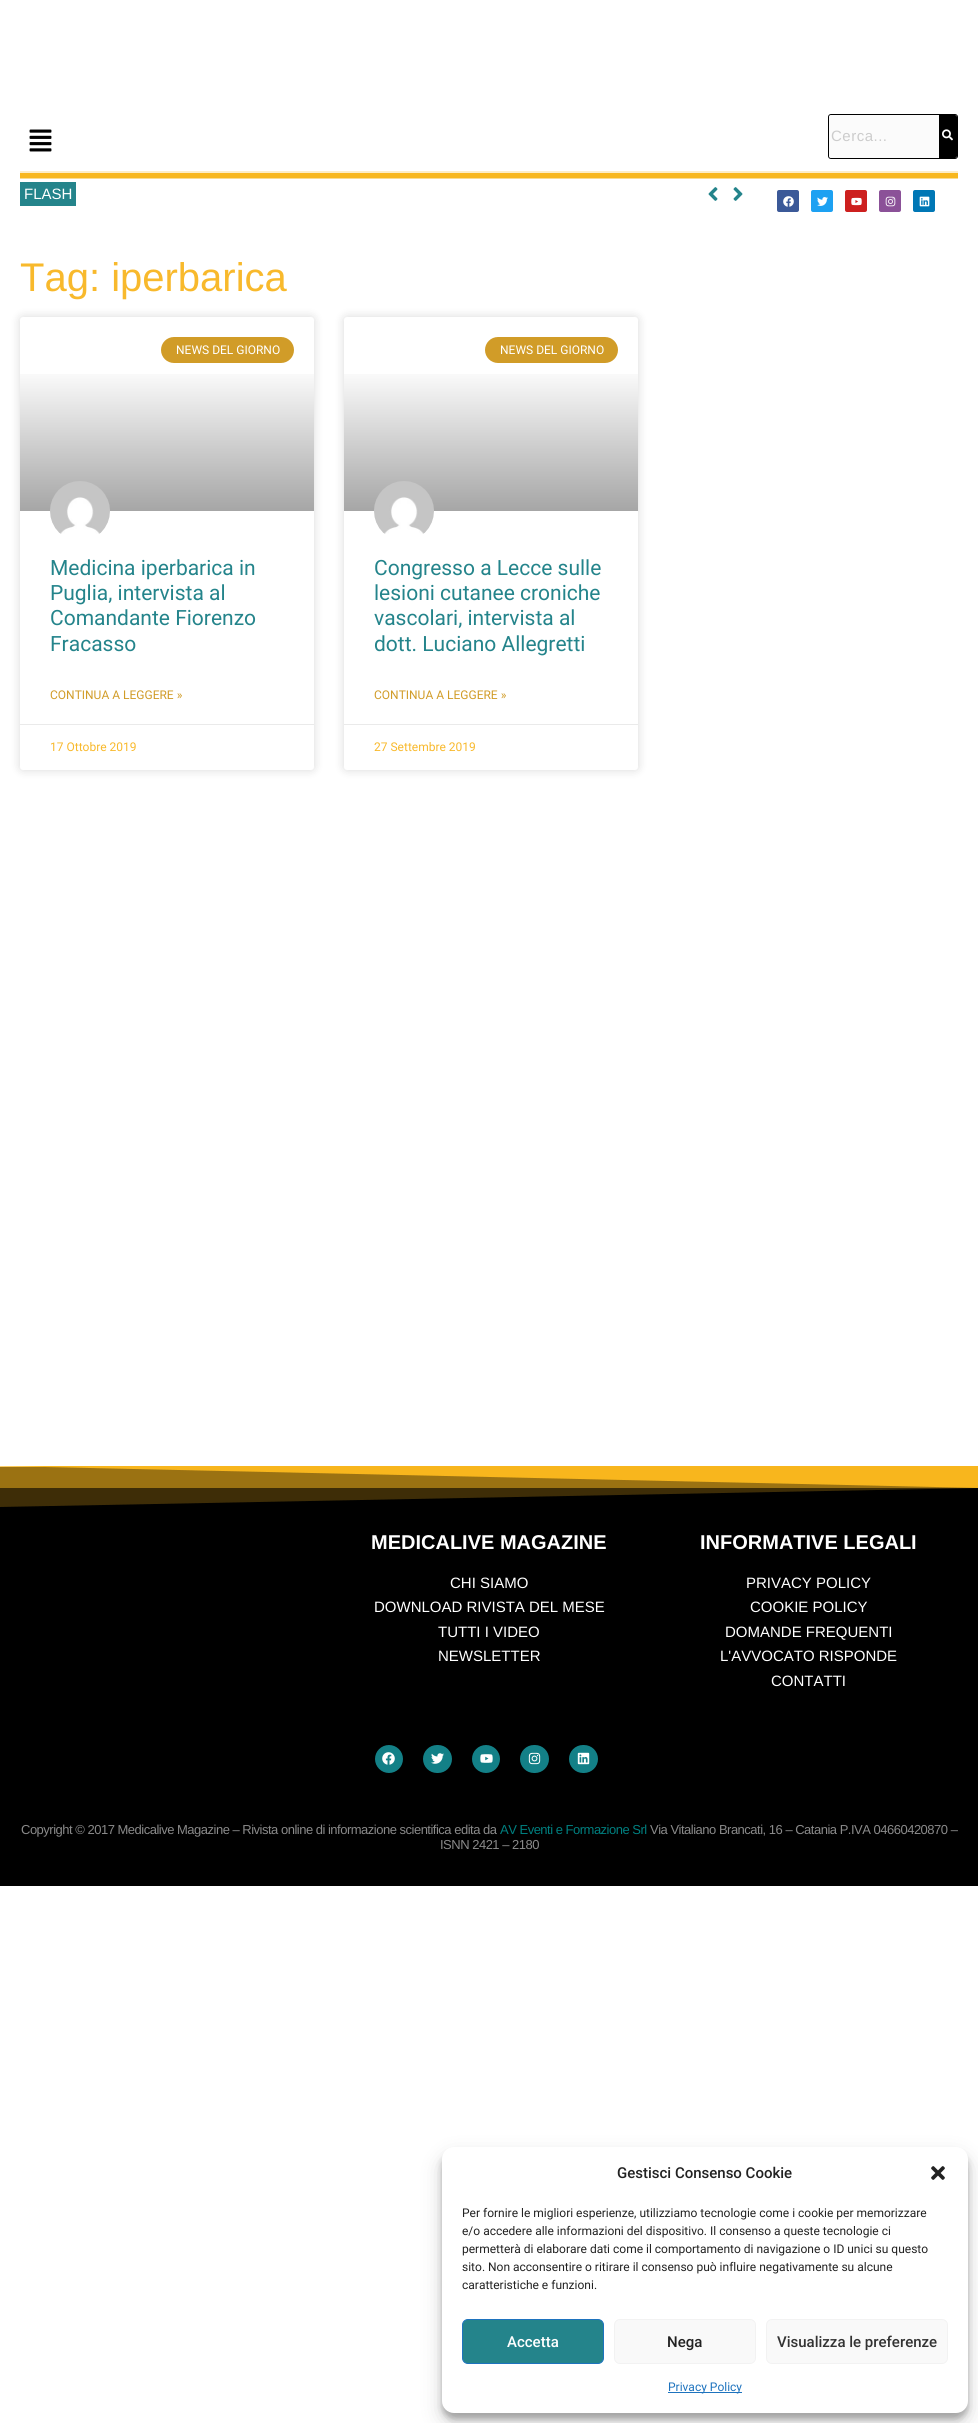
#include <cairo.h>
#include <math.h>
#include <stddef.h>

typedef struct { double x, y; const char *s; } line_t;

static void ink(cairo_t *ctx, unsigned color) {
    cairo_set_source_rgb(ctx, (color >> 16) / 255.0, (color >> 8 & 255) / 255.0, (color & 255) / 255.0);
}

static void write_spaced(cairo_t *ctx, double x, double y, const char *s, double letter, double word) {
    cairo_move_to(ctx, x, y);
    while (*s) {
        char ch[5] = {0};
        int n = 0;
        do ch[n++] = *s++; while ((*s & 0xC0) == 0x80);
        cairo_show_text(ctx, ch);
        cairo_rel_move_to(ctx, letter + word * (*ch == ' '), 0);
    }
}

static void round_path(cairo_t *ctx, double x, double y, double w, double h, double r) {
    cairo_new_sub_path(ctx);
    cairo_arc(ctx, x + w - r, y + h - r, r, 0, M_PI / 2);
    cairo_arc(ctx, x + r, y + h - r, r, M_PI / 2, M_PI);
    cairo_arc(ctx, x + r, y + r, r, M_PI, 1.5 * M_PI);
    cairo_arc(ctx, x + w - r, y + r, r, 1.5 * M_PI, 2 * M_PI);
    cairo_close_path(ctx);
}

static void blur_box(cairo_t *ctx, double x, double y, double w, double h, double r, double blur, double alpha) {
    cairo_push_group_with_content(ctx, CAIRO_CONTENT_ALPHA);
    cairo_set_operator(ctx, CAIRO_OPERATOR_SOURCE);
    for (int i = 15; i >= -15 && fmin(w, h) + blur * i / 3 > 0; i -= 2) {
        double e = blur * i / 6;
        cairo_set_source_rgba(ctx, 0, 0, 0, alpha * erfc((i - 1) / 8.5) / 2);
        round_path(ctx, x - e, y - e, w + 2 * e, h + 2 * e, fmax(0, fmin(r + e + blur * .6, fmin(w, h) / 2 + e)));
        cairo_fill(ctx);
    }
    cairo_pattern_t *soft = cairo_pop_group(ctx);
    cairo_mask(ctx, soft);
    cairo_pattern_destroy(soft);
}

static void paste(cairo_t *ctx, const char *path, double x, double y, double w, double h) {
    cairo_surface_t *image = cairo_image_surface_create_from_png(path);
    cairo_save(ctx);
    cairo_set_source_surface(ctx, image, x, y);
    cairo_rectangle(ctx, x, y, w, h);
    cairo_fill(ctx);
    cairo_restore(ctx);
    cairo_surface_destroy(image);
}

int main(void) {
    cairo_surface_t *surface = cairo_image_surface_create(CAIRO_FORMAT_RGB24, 978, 2423);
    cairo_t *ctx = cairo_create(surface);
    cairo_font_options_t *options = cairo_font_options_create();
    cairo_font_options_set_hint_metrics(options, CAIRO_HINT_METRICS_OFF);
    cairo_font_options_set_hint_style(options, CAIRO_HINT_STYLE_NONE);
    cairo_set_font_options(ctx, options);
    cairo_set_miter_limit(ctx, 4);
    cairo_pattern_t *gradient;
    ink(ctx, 0xFFFFFF);
    cairo_paint(ctx);
    ink(ctx, 0xFCDB8E);
    cairo_rectangle(ctx, 0, 1466, 44, 1);
    cairo_fill(ctx);
    paste(ctx, "media/1.png", 29, 129, 23, 23);
    round_path(ctx, 828.5, 114.5, 129, 44, 2.5);
    ink(ctx, 0x000000);
    cairo_set_line_width(ctx, 1);
    cairo_stroke(ctx);
    cairo_set_source_rgba(ctx, 0.976, 0.976, 0.976, 0.73);
    cairo_new_path(ctx);
    cairo_move_to(ctx, 831, 115);
    cairo_line_to(ctx, 939, 115);
    cairo_line_to(ctx, 939, 158);
    cairo_line_to(ctx, 831, 158);
    cairo_curve_to(ctx, 830, 158, 829, 157, 829, 156);
    cairo_line_to(ctx, 829, 117);
    cairo_curve_to(ctx, 829, 116, 830, 115, 831, 115);
    cairo_close_path(ctx);
    cairo_fill(ctx);
    cairo_select_font_face(ctx, "Liberation Sans", CAIRO_FONT_SLANT_NORMAL, CAIRO_FONT_WEIGHT_NORMAL);
    cairo_set_font_size(ctx, 15);
    ink(ctx, 0xCCCCCC);
    write_spaced(ctx, 831, 141, "Cerca...", 0.5, 0);
    ink(ctx, 0x000000);
    cairo_new_path(ctx);
    cairo_move_to(ctx, 939, 115);
    cairo_line_to(ctx, 955, 115);
    cairo_curve_to(ctx, 956, 115, 957, 116, 957, 117);
    cairo_line_to(ctx, 957, 156);
    cairo_curve_to(ctx, 957, 157, 956, 158, 955, 158);
    cairo_line_to(ctx, 939, 158);
    cairo_close_path(ctx);
    cairo_fill(ctx);
    paste(ctx, "media/2.png", 942, 129, 11, 12);
    paste(ctx, "media/3.png", 20, 171, 938, 8);
    ink(ctx, 0x24848B);
    cairo_rectangle(ctx, 20, 182, 56, 24);
    cairo_fill(ctx);
    ink(ctx, 0xFFFFFF);
    cairo_move_to(ctx, 24, 199);
    cairo_show_text(ctx, "FLASH");
    paste(ctx, "media/4.png", 708, 187, 10, 14);
    paste(ctx, "media/5.png", 733, 187, 10, 14);
    ink(ctx, 0x3B5998);
    round_path(ctx, 777, 190, 22, 22, 2);
    cairo_fill(ctx);
    paste(ctx, "media/6.png", 783, 196, 11, 11);
    ink(ctx, 0x1DA1F2);
    round_path(ctx, 811, 190, 22, 22, 2);
    cairo_fill(ctx);
    paste(ctx, "media/7.png", 817, 197, 11, 9);
    ink(ctx, 0xCD201F);
    round_path(ctx, 845, 190, 22, 22, 2);
    cairo_fill(ctx);
    paste(ctx, "media/8.png", 851, 197, 11, 9);
    ink(ctx, 0x8B5198);
    round_path(ctx, 879, 190, 22, 22, 2);
    cairo_fill(ctx);
    paste(ctx, "media/9.png", 885, 196, 11, 11);
    ink(ctx, 0x0077B5);
    round_path(ctx, 913, 190, 22, 22, 2);
    cairo_fill(ctx);
    paste(ctx, "media/10.png", 919, 196, 11, 11);
    cairo_set_font_size(ctx, 40);
    ink(ctx, 0xF8B92C);
    cairo_move_to(ctx, 20, 291);
    cairo_show_text(ctx, "Tag: iperbarica");
    ink(ctx, 0x000000);
    blur_box(ctx, 20, 317, 294, 453, 3, 5, 0.15);
    ink(ctx, 0xFFFFFF);
    round_path(ctx, 20, 317, 294, 453, 3);
    cairo_fill(ctx);
    ink(ctx, 0xD19C28);
    round_path(ctx, 161, 337, 133, 26, 13);
    cairo_fill(ctx);
    cairo_select_font_face(ctx, "Roboto", CAIRO_FONT_SLANT_NORMAL, CAIRO_FONT_WEIGHT_NORMAL);
    cairo_set_font_size(ctx, 12);
    ink(ctx, 0xFFFFFF);
    cairo_move_to(ctx, 176, 354);
    cairo_show_text(ctx, "NEWS DEL GIORNO");
    gradient = cairo_pattern_create_linear(167, 511, 167, 317);
    cairo_pattern_add_color_stop_rgba(gradient, 0, 0, 0, 0, 0.35);
    cairo_pattern_add_color_stop_rgba(gradient, 0.75, 0, 0, 0, 0);
    cairo_set_source(ctx, gradient);
    cairo_pattern_destroy(gradient);
    cairo_rectangle(ctx, 20, 374, 294, 137);
    cairo_fill(ctx);
    paste(ctx, "media/11.png", 50, 481, 60, 53);
    cairo_set_font_size(ctx, 21);
    ink(ctx, 0x24848B);
    {
        static const line_t items[] = {
            {50, 575, "Medicina iperbarica in"},
            {50, 600, "Puglia, intervista al"},
            {50, 625, "Comandante Fiorenzo"},
            {50, 651, "Fracasso"},
        };
        for (size_t i = 0; i < sizeof items / sizeof *items; i++) {
            cairo_move_to(ctx, items[i].x, items[i].y);
            cairo_show_text(ctx, items[i].s);
        }
    }
    cairo_set_font_size(ctx, 12);
    ink(ctx, 0xD19C28);
    cairo_move_to(ctx, 50, 699);
    cairo_show_text(ctx, "CONTINUA A LEGGERE »");
    ink(ctx, 0xEAEAEA);
    cairo_rectangle(ctx, 20, 724, 294, 1);
    cairo_fill(ctx);
    ink(ctx, 0xF8B92C);
    cairo_move_to(ctx, 50, 751);
    cairo_show_text(ctx, "17 Ottobre 2019");
    ink(ctx, 0x000000);
    blur_box(ctx, 344, 317, 294, 453, 3, 5, 0.15);
    ink(ctx, 0xFFFFFF);
    round_path(ctx, 344, 317, 294, 453, 3);
    cairo_fill(ctx);
    ink(ctx, 0xD19C28);
    round_path(ctx, 485, 337, 133, 26, 13);
    cairo_fill(ctx);
    ink(ctx, 0xFFFFFF);
    cairo_move_to(ctx, 500, 354);
    cairo_show_text(ctx, "NEWS DEL GIORNO");
    gradient = cairo_pattern_create_linear(491, 511, 491, 317);
    cairo_pattern_add_color_stop_rgba(gradient, 0, 0, 0, 0, 0.35);
    cairo_pattern_add_color_stop_rgba(gradient, 0.75, 0, 0, 0, 0);
    cairo_set_source(ctx, gradient);
    cairo_pattern_destroy(gradient);
    cairo_rectangle(ctx, 344, 374, 294, 137);
    cairo_fill(ctx);
    paste(ctx, "media/11.png", 374, 481, 60, 53);
    cairo_set_font_size(ctx, 21);
    ink(ctx, 0x24848B);
    {
        static const line_t items[] = {
            {374, 575, "Congresso a Lecce sulle"},
            {374, 600, "lesioni cutanee croniche"},
            {374, 625, "vascolari, intervista al"},
            {374, 651, "dott. Luciano Allegretti"},
        };
        for (size_t i = 0; i < sizeof items / sizeof *items; i++) {
            cairo_move_to(ctx, items[i].x, items[i].y);
            cairo_show_text(ctx, items[i].s);
        }
    }
    cairo_set_font_size(ctx, 12);
    ink(ctx, 0xD19C28);
    cairo_move_to(ctx, 374, 699);
    cairo_show_text(ctx, "CONTINUA A LEGGERE »");
    ink(ctx, 0xEAEAEA);
    cairo_rectangle(ctx, 344, 724, 294, 1);
    cairo_fill(ctx);
    ink(ctx, 0xF8B92C);
    cairo_move_to(ctx, 374, 751);
    cairo_show_text(ctx, "27 Settembre 2019");
    ink(ctx, 0x000000);
    cairo_rectangle(ctx, 0, 1488, 978, 398);
    cairo_fill(ctx);
    ink(ctx, 0x7C5C0F);
    cairo_rectangle(ctx, 0, 1467, 978, 21);
    cairo_fill(ctx);
    ink(ctx, 0xF8B71D);
    cairo_new_path(ctx);
    cairo_move_to(ctx, -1, 1466);
    cairo_line_to(ctx, 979, 1466);
    cairo_line_to(ctx, 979, 1488);
    cairo_close_path(ctx);
    cairo_fill(ctx);
    cairo_set_source_rgba(ctx, 0.973, 0.718, 0.114, 0.25);
    cairo_new_path(ctx);
    cairo_move_to(ctx, 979, 1466);
    cairo_line_to(ctx, -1, 1466);
    cairo_line_to(ctx, -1, 1507);
    cairo_line_to(ctx, 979, 1488);
    cairo_close_path(ctx);
    cairo_fill(ctx);
    cairo_select_font_face(ctx, "Liberation Sans", CAIRO_FONT_SLANT_NORMAL, CAIRO_FONT_WEIGHT_BOLD);
    cairo_set_font_size(ctx, 20);
    ink(ctx, 0xFFFFFF);
    cairo_move_to(ctx, 371, 1549);
    cairo_show_text(ctx, "MEDICALIVE MAGAZINE");
    cairo_select_font_face(ctx, "Liberation Sans", CAIRO_FONT_SLANT_NORMAL, CAIRO_FONT_WEIGHT_NORMAL);
    cairo_set_font_size(ctx, 15);
    {
        static const line_t items[] = {
            {450, 1588, "CHI SIAMO"},
            {374, 1612, "DOWNLOAD RIVISTA DEL MESE"},
            {438, 1637, "TUTTI I VIDEO"},
            {438, 1661, "NEWSLETTER"},
        };
        for (size_t i = 0; i < sizeof items / sizeof *items; i++) {
            cairo_move_to(ctx, items[i].x, items[i].y);
            cairo_show_text(ctx, items[i].s);
        }
    }
    cairo_select_font_face(ctx, "Liberation Sans", CAIRO_FONT_SLANT_NORMAL, CAIRO_FONT_WEIGHT_BOLD);
    cairo_set_font_size(ctx, 20);
    cairo_move_to(ctx, 700, 1549);
    cairo_show_text(ctx, "INFORMATIVE LEGALI");
    cairo_select_font_face(ctx, "Liberation Sans", CAIRO_FONT_SLANT_NORMAL, CAIRO_FONT_WEIGHT_NORMAL);
    cairo_set_font_size(ctx, 15);
    {
        static const line_t items[] = {
            {746, 1588, "PRIVACY POLICY"},
            {750, 1612, "COOKIE POLICY"},
            {725, 1637, "DOMANDE FREQUENTI"},
            {720, 1661, "L'AVVOCATO RISPONDE"},
            {771, 1686, "CONTATTI"},
        };
        for (size_t i = 0; i < sizeof items / sizeof *items; i++) {
            cairo_move_to(ctx, items[i].x, items[i].y);
            cairo_show_text(ctx, items[i].s);
        }
    }
    ink(ctx, 0x138087);
    cairo_new_path(ctx);
    cairo_arc(ctx, 389, 1759, 14, 0, 2 * M_PI);
    cairo_fill(ctx);
    paste(ctx, "media/12.png", 382, 1752, 13, 13);
    round_path(ctx, 423, 1745, 29, 28, 14);
    cairo_fill(ctx);
    paste(ctx, "media/13.png", 431, 1753, 13, 11);
    cairo_arc(ctx, 486, 1759, 14, 0, 2 * M_PI);
    cairo_fill(ctx);
    paste(ctx, "media/14.png", 480, 1754, 13, 9);
    round_path(ctx, 520, 1745, 29, 28, 14);
    cairo_fill(ctx);
    paste(ctx, "media/15.png", 528, 1752, 13, 13);
    round_path(ctx, 569, 1745, 29, 28, 14);
    cairo_fill(ctx);
    paste(ctx, "media/16.png", 577, 1752, 13, 13);
    cairo_set_font_size(ctx, 13);
    ink(ctx, 0x8A8A8A);
    write_spaced(ctx, 21, 1834, "Copyright © 2017 Medicalive Magazine – Rivista online di informazione scientifica edita da", -0.5, 0);
    ink(ctx, 0x008080);
    write_spaced(ctx, 500, 1834, "AV Eventi e Formazione Srl", -0.5, 0);
    ink(ctx, 0x8A8A8A);
    write_spaced(ctx, 650, 1834, "Via Vitaliano Brancati, 16 – Catania P.IVA 04660420870 –", -0.5, 0);
    write_spaced(ctx, 440, 1849, "ISNN 2421 – 2180", -0.5, 0);
    ink(ctx, 0x000000);
    blur_box(ctx, 442, 2153, 526, 266, 12, 3, 0.23);
    blur_box(ctx, 442, 2157, 526, 266, 12, 10, 0.19);
    ink(ctx, 0xFFFFFF);
    round_path(ctx, 442, 2147, 526, 266, 12);
    cairo_fill(ctx);
    cairo_select_font_face(ctx, "Roboto Medium", CAIRO_FONT_SLANT_NORMAL, CAIRO_FONT_WEIGHT_NORMAL);
    cairo_set_font_size(ctx, 15);
    ink(ctx, 0x222222);
    cairo_move_to(ctx, 617, 2178);
    cairo_show_text(ctx, "Gestisci Consenso Cookie");
    paste(ctx, "media/17.png", 931, 2166, 14, 14);
    cairo_select_font_face(ctx, "Roboto", CAIRO_FONT_SLANT_NORMAL, CAIRO_FONT_WEIGHT_NORMAL);
    cairo_set_font_size(ctx, 12);
    {
        static const line_t items[] = {
            {462, 2217, "Per fornire le migliori esperienze, utilizziamo tecnologie come i cookie per memorizzare"},
            {462, 2235, "e/o accedere alle informazioni del dispositivo. Il consenso a queste tecnologie ci"},
            {462, 2253, "permetterà di elaborare dati come il comportamento di navigazione o ID unici su questo"},
            {462, 2271, "sito. Non acconsentire o ritirare il consenso può influire negativamente su alcune"},
            {462, 2289, "caratteristiche e funzioni."},
        };
        for (size_t i = 0; i < sizeof items / sizeof *items; i++) {
            cairo_move_to(ctx, items[i].x, items[i].y);
            cairo_show_text(ctx, items[i].s);
        }
    }
    ink(ctx, 0x24848B);
    round_path(ctx, 462.5, 2319.5, 141, 44, 5.5);
    cairo_fill_preserve(ctx);
    ink(ctx, 0x1E73BE);
    cairo_stroke(ctx);
    cairo_select_font_face(ctx, "Roboto Medium", CAIRO_FONT_SLANT_NORMAL, CAIRO_FONT_WEIGHT_NORMAL);
    cairo_set_font_size(ctx, 15);
    ink(ctx, 0xFFFFFF);
    cairo_move_to(ctx, 507, 2347);
    cairo_show_text(ctx, "Accetta");
    ink(ctx, 0xF9F9F9);
    round_path(ctx, 614.5, 2319.5, 141, 44, 5.5);
    cairo_fill_preserve(ctx);
    ink(ctx, 0xF2F2F2);
    cairo_stroke(ctx);
    ink(ctx, 0x222222);
    cairo_move_to(ctx, 667, 2347);
    cairo_show_text(ctx, "Nega");
    ink(ctx, 0xF9F9F9);
    round_path(ctx, 766.5, 2319.5, 181, 44, 5.5);
    cairo_fill_preserve(ctx);
    ink(ctx, 0xF2F2F2);
    cairo_stroke(ctx);
    ink(ctx, 0x333333);
    cairo_move_to(ctx, 777, 2347);
    cairo_show_text(ctx, "Visualizza le preferenze");
    ink(ctx, 0x1E73BE);
    cairo_rectangle(ctx, 668, 2392, 74, 1);
    cairo_fill(ctx);
    cairo_select_font_face(ctx, "Roboto", CAIRO_FONT_SLANT_NORMAL, CAIRO_FONT_WEIGHT_NORMAL);
    cairo_set_font_size(ctx, 12);
    cairo_move_to(ctx, 668, 2391);
    cairo_show_text(ctx, "Privacy Policy");
    cairo_surface_write_to_png(surface, "image.png");
    cairo_font_options_destroy(options);
    cairo_destroy(ctx);
    cairo_surface_destroy(surface);
    return 0;
}
